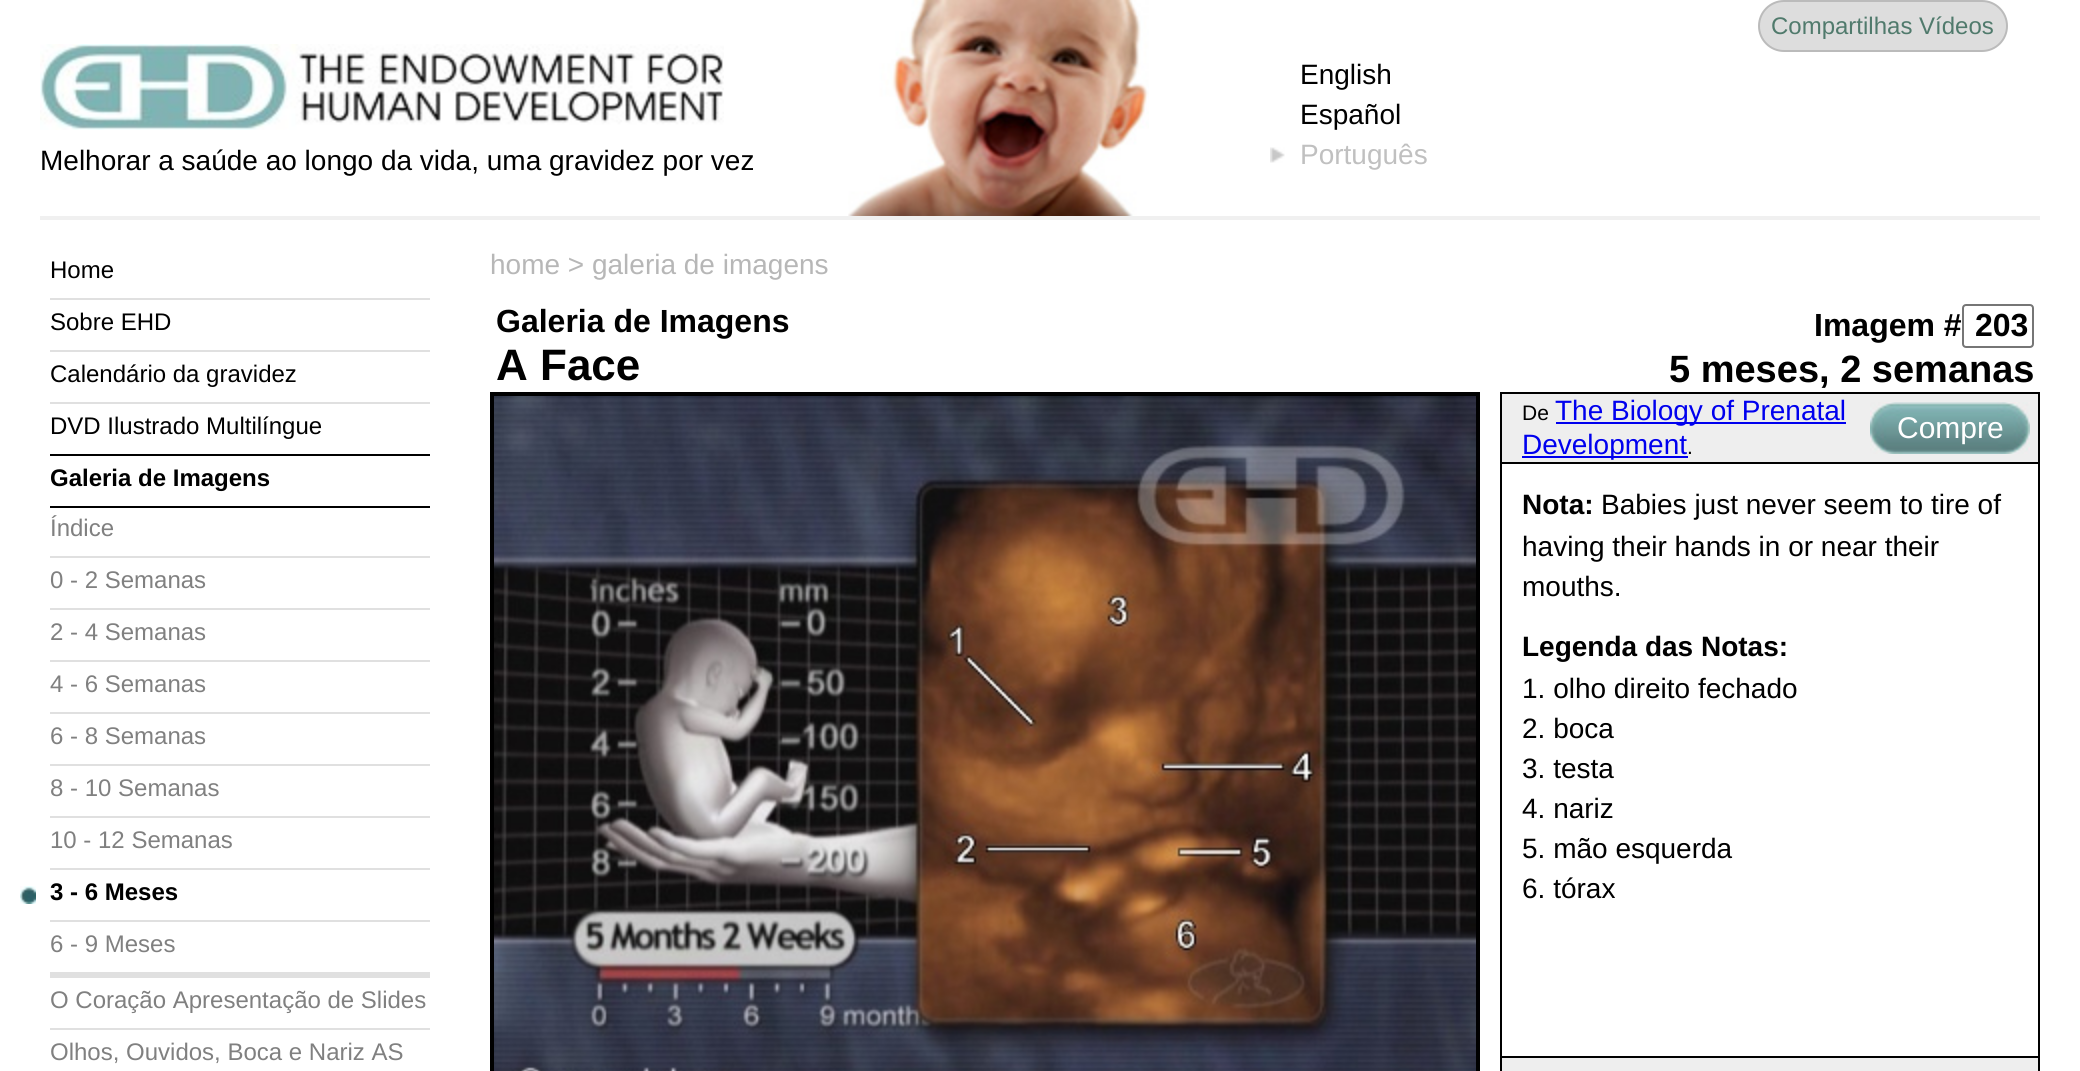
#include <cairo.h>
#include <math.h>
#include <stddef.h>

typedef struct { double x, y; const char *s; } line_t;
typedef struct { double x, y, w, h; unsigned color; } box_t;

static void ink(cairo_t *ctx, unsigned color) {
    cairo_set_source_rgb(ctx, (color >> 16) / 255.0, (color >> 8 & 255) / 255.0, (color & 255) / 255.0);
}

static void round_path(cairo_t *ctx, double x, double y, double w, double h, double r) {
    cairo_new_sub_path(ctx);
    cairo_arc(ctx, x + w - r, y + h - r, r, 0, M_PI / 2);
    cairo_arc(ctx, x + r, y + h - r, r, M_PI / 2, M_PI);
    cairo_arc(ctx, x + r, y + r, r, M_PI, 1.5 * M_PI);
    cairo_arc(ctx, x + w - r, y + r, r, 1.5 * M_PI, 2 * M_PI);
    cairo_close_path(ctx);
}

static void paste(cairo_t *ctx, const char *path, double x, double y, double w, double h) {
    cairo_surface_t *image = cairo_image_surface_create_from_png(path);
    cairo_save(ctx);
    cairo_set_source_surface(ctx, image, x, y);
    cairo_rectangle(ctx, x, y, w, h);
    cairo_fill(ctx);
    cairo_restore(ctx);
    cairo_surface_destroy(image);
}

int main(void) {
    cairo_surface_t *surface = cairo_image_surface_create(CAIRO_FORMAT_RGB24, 2080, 1071);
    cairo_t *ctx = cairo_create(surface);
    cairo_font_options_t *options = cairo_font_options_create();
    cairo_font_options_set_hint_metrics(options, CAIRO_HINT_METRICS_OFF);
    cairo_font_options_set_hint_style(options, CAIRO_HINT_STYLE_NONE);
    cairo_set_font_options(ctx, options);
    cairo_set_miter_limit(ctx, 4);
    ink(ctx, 0xFFFFFF);
    cairo_paint(ctx);
    paste(ctx, "media/1.png", 848, 0, 301, 216);
    ink(ctx, 0xDDDDDD);
    round_path(ctx, 1759, 1, 248, 50, 25);
    cairo_fill_preserve(ctx);
    ink(ctx, 0xBBBBBB);
    cairo_stroke(ctx);
    cairo_select_font_face(ctx, "Liberation Sans", CAIRO_FONT_SLANT_NORMAL, CAIRO_FONT_WEIGHT_NORMAL);
    cairo_set_font_size(ctx, 24);
    ink(ctx, 0x507A6C);
    cairo_move_to(ctx, 1771, 34);
    cairo_show_text(ctx, "Compartilhas Vídeos");
    paste(ctx, "media/2.png", 40, 44, 684, 86);
    cairo_set_font_size(ctx, 28);
    ink(ctx, 0x000000);
    {
        static const line_t items[] = {
            {40, 170, "Melhorar a saúde ao longo da vida, uma gravidez por vez"},
            {1300, 84, "English"},
            {1300, 124, "Español"},
        };
        for (size_t i = 0; i < sizeof items / sizeof *items; i++) {
            cairo_move_to(ctx, items[i].x, items[i].y);
            cairo_show_text(ctx, items[i].s);
        }
    }
    paste(ctx, "media/3.png", 1270, 147, 15, 16);
    ink(ctx, 0xC0C0C0);
    cairo_move_to(ctx, 1300, 164);
    cairo_show_text(ctx, "Português");
    ink(ctx, 0xF0F0F0);
    cairo_rectangle(ctx, 40, 216, 2000, 4);
    cairo_fill(ctx);
    ink(ctx, 0xE0E0E0);
    cairo_rectangle(ctx, 50, 298, 380, 2);
    cairo_fill(ctx);
    cairo_set_font_size(ctx, 24);
    ink(ctx, 0x000000);
    cairo_move_to(ctx, 50, 278);
    cairo_show_text(ctx, "Home");
    ink(ctx, 0xE0E0E0);
    cairo_rectangle(ctx, 50, 350, 380, 2);
    cairo_fill(ctx);
    ink(ctx, 0x000000);
    cairo_move_to(ctx, 50, 330);
    cairo_show_text(ctx, "Sobre EHD");
    ink(ctx, 0xE0E0E0);
    cairo_rectangle(ctx, 50, 402, 380, 2);
    cairo_fill(ctx);
    ink(ctx, 0x000000);
    cairo_move_to(ctx, 50, 382);
    cairo_show_text(ctx, "Calendário da gravidez");
    cairo_move_to(ctx, 50, 434);
    cairo_show_text(ctx, "DVD Ilustrado Multilíngue");
    cairo_rectangle(ctx, 50, 454, 380, 2);
    cairo_fill(ctx);
    cairo_rectangle(ctx, 50, 506, 380, 2);
    cairo_fill(ctx);
    cairo_select_font_face(ctx, "Liberation Sans", CAIRO_FONT_SLANT_NORMAL, CAIRO_FONT_WEIGHT_BOLD);
    cairo_move_to(ctx, 50, 486);
    cairo_show_text(ctx, "Galeria de Imagens");
    ink(ctx, 0xE0E0E0);
    cairo_rectangle(ctx, 50, 556, 380, 2);
    cairo_fill(ctx);
    cairo_select_font_face(ctx, "Liberation Sans", CAIRO_FONT_SLANT_NORMAL, CAIRO_FONT_WEIGHT_NORMAL);
    ink(ctx, 0x808080);
    cairo_move_to(ctx, 50, 536);
    cairo_show_text(ctx, "Índice");
    ink(ctx, 0xE0E0E0);
    cairo_rectangle(ctx, 50, 608, 380, 2);
    cairo_fill(ctx);
    ink(ctx, 0x808080);
    cairo_move_to(ctx, 50, 588);
    cairo_show_text(ctx, "0 - 2 Semanas");
    ink(ctx, 0xE0E0E0);
    cairo_rectangle(ctx, 50, 660, 380, 2);
    cairo_fill(ctx);
    ink(ctx, 0x808080);
    cairo_move_to(ctx, 50, 640);
    cairo_show_text(ctx, "2 - 4 Semanas");
    ink(ctx, 0xE0E0E0);
    cairo_rectangle(ctx, 50, 712, 380, 2);
    cairo_fill(ctx);
    ink(ctx, 0x808080);
    cairo_move_to(ctx, 50, 692);
    cairo_show_text(ctx, "4 - 6 Semanas");
    ink(ctx, 0xE0E0E0);
    cairo_rectangle(ctx, 50, 764, 380, 2);
    cairo_fill(ctx);
    ink(ctx, 0x808080);
    cairo_move_to(ctx, 50, 744);
    cairo_show_text(ctx, "6 - 8 Semanas");
    ink(ctx, 0xE0E0E0);
    cairo_rectangle(ctx, 50, 816, 380, 2);
    cairo_fill(ctx);
    ink(ctx, 0x808080);
    cairo_move_to(ctx, 50, 796);
    cairo_show_text(ctx, "8 - 10 Semanas");
    ink(ctx, 0xE0E0E0);
    cairo_rectangle(ctx, 50, 868, 380, 2);
    cairo_fill(ctx);
    ink(ctx, 0x808080);
    cairo_move_to(ctx, 50, 848);
    cairo_show_text(ctx, "10 - 12 Semanas");
    ink(ctx, 0xE0E0E0);
    cairo_rectangle(ctx, 50, 920, 380, 2);
    cairo_fill(ctx);
    paste(ctx, "media/4.png", 20, 886, 16, 18);
    cairo_select_font_face(ctx, "Liberation Sans", CAIRO_FONT_SLANT_NORMAL, CAIRO_FONT_WEIGHT_BOLD);
    ink(ctx, 0x000000);
    cairo_move_to(ctx, 50, 900);
    cairo_show_text(ctx, "3 - 6 Meses");
    cairo_select_font_face(ctx, "Liberation Sans", CAIRO_FONT_SLANT_NORMAL, CAIRO_FONT_WEIGHT_NORMAL);
    ink(ctx, 0x808080);
    cairo_move_to(ctx, 50, 952);
    cairo_show_text(ctx, "6 - 9 Meses");
    ink(ctx, 0xE0E0E0);
    cairo_rectangle(ctx, 50, 1028, 380, 2);
    cairo_fill(ctx);
    cairo_rectangle(ctx, 50, 972, 380, 6);
    cairo_fill(ctx);
    ink(ctx, 0x808080);
    cairo_move_to(ctx, 50, 1008);
    cairo_show_text(ctx, "O Coração Apresentação de Slides");
    cairo_move_to(ctx, 50, 1060);
    cairo_show_text(ctx, "Olhos, Ouvidos, Boca e Nariz AS");
    cairo_set_font_size(ctx, 28);
    ink(ctx, 0xB7B7B7);
    cairo_move_to(ctx, 490, 274);
    cairo_show_text(ctx, "home > galeria de imagens");
    cairo_select_font_face(ctx, "Liberation Sans", CAIRO_FONT_SLANT_NORMAL, CAIRO_FONT_WEIGHT_BOLD);
    cairo_set_font_size(ctx, 32);
    ink(ctx, 0x000000);
    cairo_move_to(ctx, 496, 332);
    cairo_show_text(ctx, "Galeria de Imagens");
    cairo_set_font_size(ctx, 44);
    cairo_move_to(ctx, 496, 380);
    cairo_show_text(ctx, "A Face");
    cairo_set_font_size(ctx, 32);
    cairo_move_to(ctx, 1814, 336);
    cairo_show_text(ctx, "Imagem #");
    round_path(ctx, 1963, 305, 70, 42, 3);
    ink(ctx, 0x767676);
    cairo_stroke(ctx);
    ink(ctx, 0x000000);
    cairo_move_to(ctx, 1975, 336);
    cairo_show_text(ctx, "203");
    cairo_set_font_size(ctx, 38);
    cairo_move_to(ctx, 1669, 382);
    cairo_show_text(ctx, "5 meses, 2 semanas");
    cairo_rectangle(ctx, 492, 394, 986, 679);
    cairo_set_line_width(ctx, 4);
    cairo_stroke(ctx);
    paste(ctx, "media/5.png", 494, 396, 982, 675);
    {
        static const box_t items[] = {
            {1502, 394, 536, 68, 0xEEEEEE},
            {1500, 392, 540, 2, 0x000000},
            {2038, 392, 2, 70, 0x000000},
            {1500, 392, 2, 70, 0x000000},
        };
        for (size_t i = 0; i < sizeof items / sizeof *items; i++) {
            ink(ctx, items[i].color);
            cairo_rectangle(ctx, items[i].x, items[i].y, items[i].w, items[i].h);
            cairo_fill(ctx);
        }
    }
    cairo_select_font_face(ctx, "Liberation Sans", CAIRO_FONT_SLANT_NORMAL, CAIRO_FONT_WEIGHT_NORMAL);
    cairo_set_font_size(ctx, 21);
    cairo_move_to(ctx, 1522, 420);
    cairo_show_text(ctx, "De");
    ink(ctx, 0x0000EE);
    cairo_rectangle(ctx, 1556, 422, 290, 2);
    cairo_fill(ctx);
    cairo_set_font_size(ctx, 28);
    cairo_move_to(ctx, 1555, 420);
    cairo_show_text(ctx, "The Biology of Prenatal");
    cairo_rectangle(ctx, 1522, 456, 166, 2);
    cairo_fill(ctx);
    cairo_move_to(ctx, 1522, 454);
    cairo_show_text(ctx, "Development");
    cairo_set_font_size(ctx, 21);
    ink(ctx, 0x000000);
    cairo_move_to(ctx, 1687, 454);
    cairo_show_text(ctx, ".");
    paste(ctx, "media/6.png", 1870, 402, 160, 52);
    cairo_set_font_size(ctx, 30);
    ink(ctx, 0xFFFFFF);
    cairo_move_to(ctx, 1897, 438);
    cairo_show_text(ctx, "Compre");
    cairo_rectangle(ctx, 1501, 463, 538, 594);
    ink(ctx, 0x000000);
    cairo_set_line_width(ctx, 2);
    cairo_stroke(ctx);
    cairo_select_font_face(ctx, "Liberation Sans", CAIRO_FONT_SLANT_NORMAL, CAIRO_FONT_WEIGHT_BOLD);
    cairo_set_font_size(ctx, 28);
    cairo_move_to(ctx, 1522, 514);
    cairo_show_text(ctx, "Nota:");
    cairo_select_font_face(ctx, "Liberation Sans", CAIRO_FONT_SLANT_NORMAL, CAIRO_FONT_WEIGHT_NORMAL);
    {
        static const line_t items[] = {
            {1601, 514, "Babies just never seem to tire of"},
            {1522, 556, "having their hands in or near their"},
            {1522, 596, "mouths."},
        };
        for (size_t i = 0; i < sizeof items / sizeof *items; i++) {
            cairo_move_to(ctx, items[i].x, items[i].y);
            cairo_show_text(ctx, items[i].s);
        }
    }
    cairo_select_font_face(ctx, "Liberation Sans", CAIRO_FONT_SLANT_NORMAL, CAIRO_FONT_WEIGHT_BOLD);
    cairo_move_to(ctx, 1522, 656);
    cairo_show_text(ctx, "Legenda das Notas:");
    cairo_select_font_face(ctx, "Liberation Sans", CAIRO_FONT_SLANT_NORMAL, CAIRO_FONT_WEIGHT_NORMAL);
    {
        static const line_t items[] = {
            {1522, 698, "1. olho direito fechado"},
            {1522, 738, "2. boca"},
            {1522, 778, "3. testa"},
            {1522, 818, "4. nariz"},
            {1522, 858, "5. mão esquerda"},
            {1522, 898, "6. tórax"},
        };
        for (size_t i = 0; i < sizeof items / sizeof *items; i++) {
            cairo_move_to(ctx, items[i].x, items[i].y);
            cairo_show_text(ctx, items[i].s);
        }
    }
    {
        static const box_t items[] = {
            {1502, 1058, 536, 13, 0xEEEEEE},
            {2038, 1058, 2, 13, 0x000000},
            {1500, 1058, 2, 13, 0x000000},
        };
        for (size_t i = 0; i < sizeof items / sizeof *items; i++) {
            ink(ctx, items[i].color);
            cairo_rectangle(ctx, items[i].x, items[i].y, items[i].w, items[i].h);
            cairo_fill(ctx);
        }
    }
    cairo_surface_write_to_png(surface, "image.png");
    cairo_font_options_destroy(options);
    cairo_destroy(ctx);
    cairo_surface_destroy(surface);
    return 0;
}
